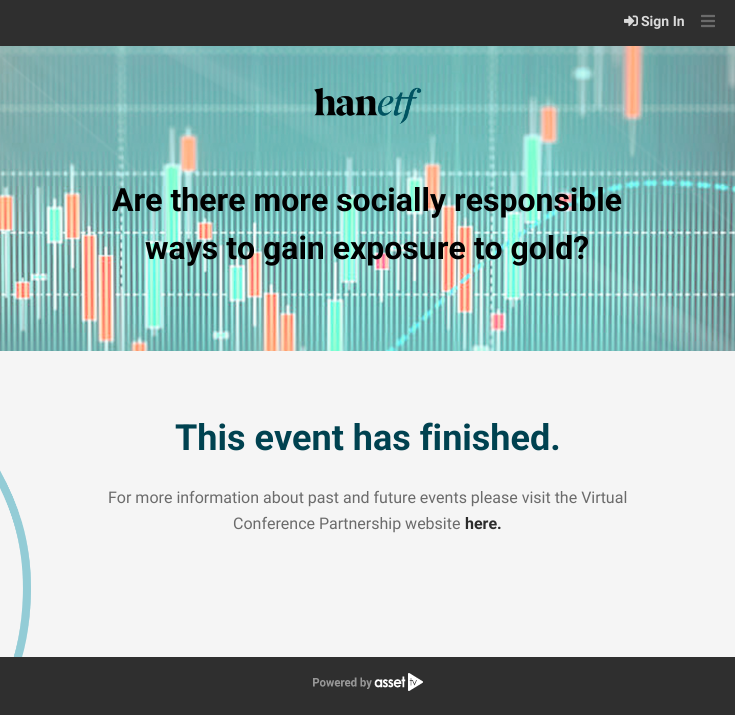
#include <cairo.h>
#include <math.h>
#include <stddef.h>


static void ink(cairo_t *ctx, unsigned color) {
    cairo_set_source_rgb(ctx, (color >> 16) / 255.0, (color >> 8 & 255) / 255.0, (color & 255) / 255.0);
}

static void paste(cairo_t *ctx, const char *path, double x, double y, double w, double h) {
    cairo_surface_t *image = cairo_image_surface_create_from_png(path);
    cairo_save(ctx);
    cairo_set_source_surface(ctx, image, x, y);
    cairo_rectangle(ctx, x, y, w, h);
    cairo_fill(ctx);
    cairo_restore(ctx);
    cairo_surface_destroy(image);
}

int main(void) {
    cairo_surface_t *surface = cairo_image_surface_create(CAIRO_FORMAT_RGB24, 735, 715);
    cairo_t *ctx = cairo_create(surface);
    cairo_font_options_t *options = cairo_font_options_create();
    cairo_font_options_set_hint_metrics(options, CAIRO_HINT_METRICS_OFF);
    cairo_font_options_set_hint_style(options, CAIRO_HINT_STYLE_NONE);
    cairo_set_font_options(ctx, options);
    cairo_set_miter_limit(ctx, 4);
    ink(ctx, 0xFFFFFF);
    cairo_paint(ctx);
    ink(ctx, 0x2F2F2F);
    cairo_rectangle(ctx, 0, 0, 735, 46);
    cairo_fill(ctx);
    paste(ctx, "media/1.png", 624, 15, 14, 12);
    cairo_select_font_face(ctx, "Roboto", CAIRO_FONT_SLANT_NORMAL, CAIRO_FONT_WEIGHT_BOLD);
    cairo_set_font_size(ctx, 14);
    ink(ctx, 0xDADADA);
    cairo_move_to(ctx, 641, 26);
    cairo_show_text(ctx, "Sign In");
    paste(ctx, "media/2.png", 701, 14, 14, 14);
    paste(ctx, "media/3.png", 0, 46, 735, 305);
    paste(ctx, "media/4.png", 314, 87, 108, 37);
    cairo_set_font_size(ctx, 32);
    ink(ctx, 0x000000);
    cairo_move_to(ctx, 112, 211);
    cairo_show_text(ctx, "Are there more socially responsible");
    cairo_move_to(ctx, 145, 259);
    cairo_show_text(ctx, "ways to gain exposure to gold?");
    ink(ctx, 0xF5F5F5);
    cairo_rectangle(ctx, 0, 351, 735, 306);
    cairo_fill(ctx);
    paste(ctx, "media/5.png", 0, 470, 31, 187);
    cairo_set_font_size(ctx, 36);
    ink(ctx, 0x004250);
    cairo_move_to(ctx, 175, 450);
    cairo_show_text(ctx, "This event has finished.");
    cairo_select_font_face(ctx, "Roboto", CAIRO_FONT_SLANT_NORMAL, CAIRO_FONT_WEIGHT_NORMAL);
    cairo_set_font_size(ctx, 16);
    ink(ctx, 0x6B6B6B);
    cairo_move_to(ctx, 108, 503);
    cairo_show_text(ctx, "For more information about past and future events please visit the Virtual");
    cairo_move_to(ctx, 233, 529);
    cairo_show_text(ctx, "Conference Partnership website");
    cairo_select_font_face(ctx, "Roboto", CAIRO_FONT_SLANT_NORMAL, CAIRO_FONT_WEIGHT_BOLD);
    ink(ctx, 0x2C2C2C);
    cairo_move_to(ctx, 465, 529);
    cairo_show_text(ctx, "here.");
    ink(ctx, 0x2F2F2F);
    cairo_rectangle(ctx, 0, 657, 735, 58);
    cairo_fill(ctx);
    paste(ctx, "media/6.png", 313, 673, 110, 18);
    cairo_surface_write_to_png(surface, "image.png");
    cairo_font_options_destroy(options);
    cairo_destroy(ctx);
    cairo_surface_destroy(surface);
    return 0;
}
